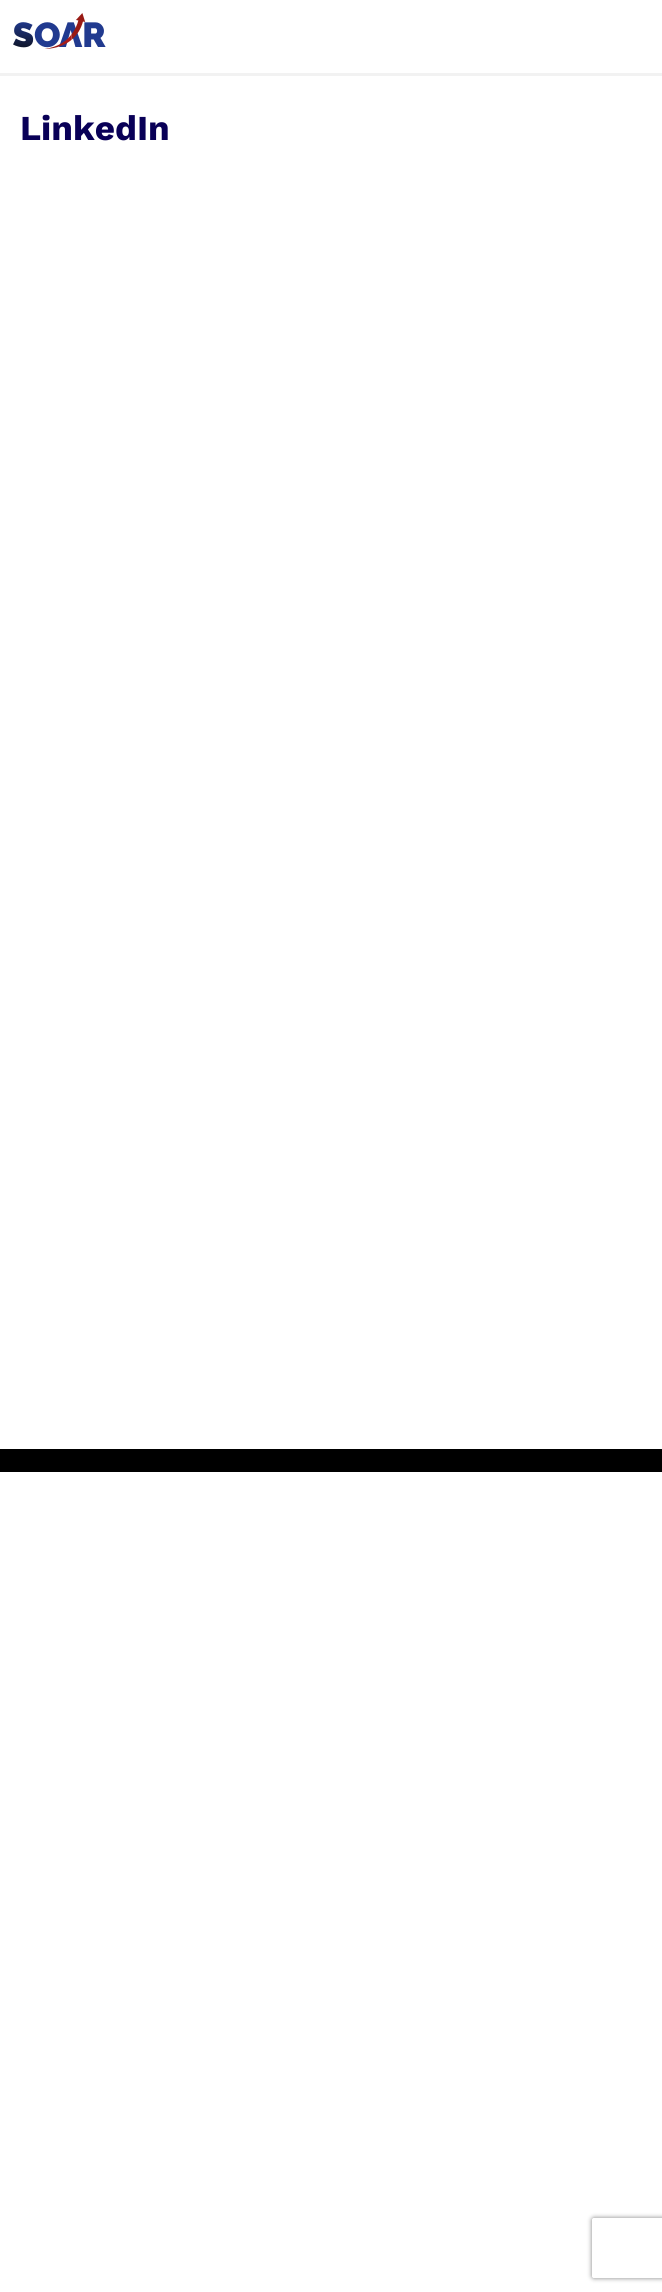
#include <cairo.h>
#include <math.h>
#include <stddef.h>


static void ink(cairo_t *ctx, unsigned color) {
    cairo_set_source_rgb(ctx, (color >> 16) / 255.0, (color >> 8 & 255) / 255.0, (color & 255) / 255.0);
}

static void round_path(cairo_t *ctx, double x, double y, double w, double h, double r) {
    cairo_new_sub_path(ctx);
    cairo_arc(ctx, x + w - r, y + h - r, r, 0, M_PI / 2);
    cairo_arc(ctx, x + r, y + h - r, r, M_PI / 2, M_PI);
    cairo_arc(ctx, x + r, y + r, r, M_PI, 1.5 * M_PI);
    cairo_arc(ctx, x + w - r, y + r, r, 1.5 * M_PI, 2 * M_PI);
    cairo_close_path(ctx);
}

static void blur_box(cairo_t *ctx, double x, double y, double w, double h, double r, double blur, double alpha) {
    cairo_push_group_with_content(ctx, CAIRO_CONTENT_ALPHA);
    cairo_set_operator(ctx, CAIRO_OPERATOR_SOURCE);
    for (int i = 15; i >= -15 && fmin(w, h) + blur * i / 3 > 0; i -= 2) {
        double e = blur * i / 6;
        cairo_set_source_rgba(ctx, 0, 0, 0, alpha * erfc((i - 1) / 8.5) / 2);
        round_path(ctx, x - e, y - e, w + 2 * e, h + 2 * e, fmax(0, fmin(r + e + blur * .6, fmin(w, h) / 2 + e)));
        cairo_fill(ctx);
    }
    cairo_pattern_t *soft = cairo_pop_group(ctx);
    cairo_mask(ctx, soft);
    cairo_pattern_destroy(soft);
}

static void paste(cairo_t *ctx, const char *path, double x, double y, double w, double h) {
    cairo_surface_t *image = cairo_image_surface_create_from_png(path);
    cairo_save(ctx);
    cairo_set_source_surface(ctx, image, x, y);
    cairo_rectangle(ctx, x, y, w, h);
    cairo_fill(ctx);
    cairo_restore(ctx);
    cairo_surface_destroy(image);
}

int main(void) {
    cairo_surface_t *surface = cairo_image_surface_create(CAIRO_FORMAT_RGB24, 662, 2292);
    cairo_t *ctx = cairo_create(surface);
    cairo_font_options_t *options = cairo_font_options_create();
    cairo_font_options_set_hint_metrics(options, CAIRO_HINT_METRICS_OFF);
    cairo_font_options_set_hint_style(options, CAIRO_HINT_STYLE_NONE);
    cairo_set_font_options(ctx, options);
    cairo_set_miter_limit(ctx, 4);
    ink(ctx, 0xFFFFFF);
    cairo_paint(ctx);
    paste(ctx, "media/1.png", 13, 13, 93, 36);
    ink(ctx, 0xF2F2F2);
    cairo_rectangle(ctx, 0, 73, 662, 3);
    cairo_fill(ctx);
    cairo_select_font_face(ctx, "Work Sans", CAIRO_FONT_SLANT_NORMAL, CAIRO_FONT_WEIGHT_BOLD);
    cairo_set_font_size(ctx, 35);
    ink(ctx, 0x090057);
    cairo_move_to(ctx, 20, 140);
    cairo_show_text(ctx, "LinkedIn");
    ink(ctx, 0x000000);
    cairo_rectangle(ctx, 0, 1449, 662, 23);
    cairo_fill(ctx);
    cairo_save(ctx);
    cairo_set_fill_rule(ctx, CAIRO_FILL_RULE_EVEN_ODD);
    cairo_new_path(ctx);
    cairo_move_to(ctx, 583, 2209);
    cairo_line_to(ctx, 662, 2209);
    cairo_line_to(ctx, 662, 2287);
    cairo_line_to(ctx, 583, 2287);
    cairo_close_path(ctx);
    cairo_move_to(ctx, 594, 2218);
    cairo_line_to(ctx, 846, 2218);
    cairo_curve_to(ctx, 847, 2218, 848, 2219, 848, 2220);
    cairo_line_to(ctx, 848, 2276);
    cairo_curve_to(ctx, 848, 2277, 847, 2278, 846, 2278);
    cairo_line_to(ctx, 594, 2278);
    cairo_curve_to(ctx, 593, 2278, 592, 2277, 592, 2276);
    cairo_line_to(ctx, 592, 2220);
    cairo_curve_to(ctx, 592, 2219, 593, 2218, 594, 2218);
    cairo_close_path(ctx);
    cairo_clip(ctx);
    ink(ctx, 0x808080);
    blur_box(ctx, 592, 2218, 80, 60, 2, 2.5, 1);
    cairo_restore(ctx);
    cairo_surface_write_to_png(surface, "image.png");
    cairo_font_options_destroy(options);
    cairo_destroy(ctx);
    cairo_surface_destroy(surface);
    return 0;
}
